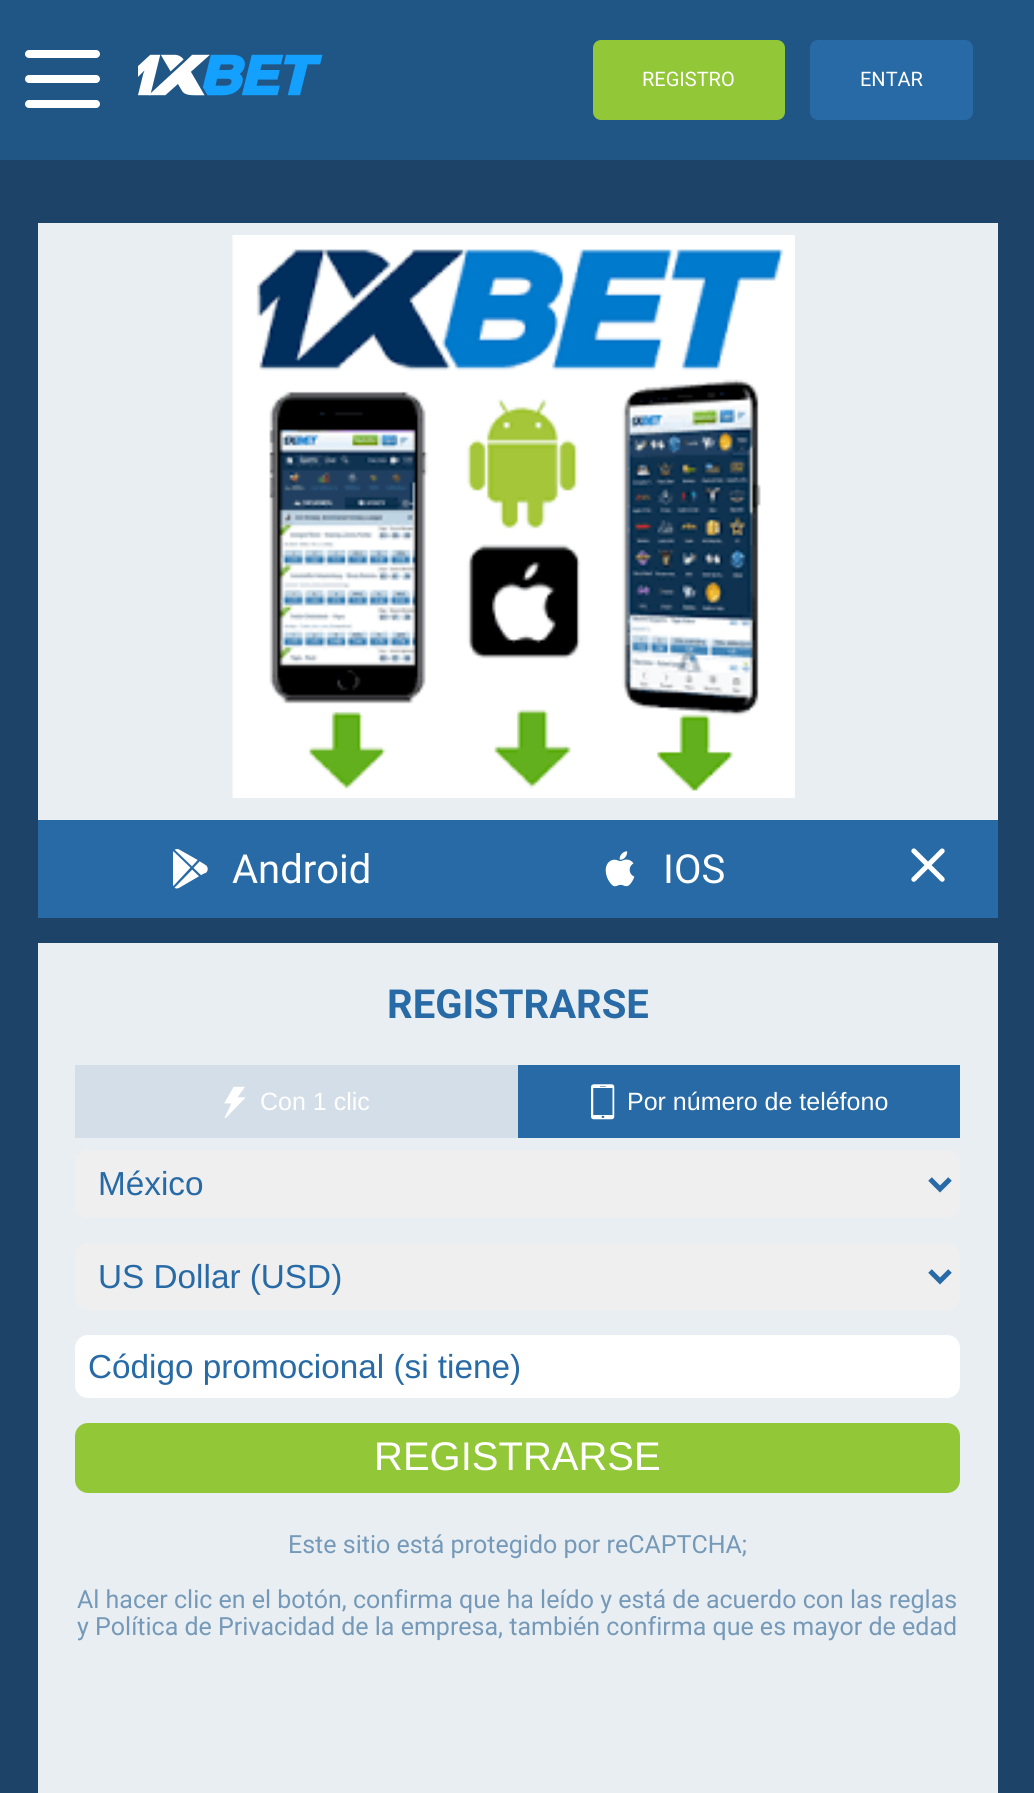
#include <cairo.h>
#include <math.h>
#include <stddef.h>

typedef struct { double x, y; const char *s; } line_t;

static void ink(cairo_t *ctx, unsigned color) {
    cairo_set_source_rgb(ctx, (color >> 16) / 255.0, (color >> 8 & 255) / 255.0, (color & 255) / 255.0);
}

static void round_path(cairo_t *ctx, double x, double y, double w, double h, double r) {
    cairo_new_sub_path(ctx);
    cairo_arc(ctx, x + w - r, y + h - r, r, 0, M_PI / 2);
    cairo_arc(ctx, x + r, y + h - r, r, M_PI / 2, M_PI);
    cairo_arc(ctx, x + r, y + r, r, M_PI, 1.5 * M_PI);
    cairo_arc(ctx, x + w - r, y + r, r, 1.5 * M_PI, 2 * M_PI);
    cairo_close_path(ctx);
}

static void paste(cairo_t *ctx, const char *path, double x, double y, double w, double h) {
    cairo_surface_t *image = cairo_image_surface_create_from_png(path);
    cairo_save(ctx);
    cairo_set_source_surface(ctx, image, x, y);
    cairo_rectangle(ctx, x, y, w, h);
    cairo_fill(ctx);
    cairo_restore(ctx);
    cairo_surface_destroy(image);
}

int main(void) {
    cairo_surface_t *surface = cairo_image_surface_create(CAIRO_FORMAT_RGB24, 1034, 1793);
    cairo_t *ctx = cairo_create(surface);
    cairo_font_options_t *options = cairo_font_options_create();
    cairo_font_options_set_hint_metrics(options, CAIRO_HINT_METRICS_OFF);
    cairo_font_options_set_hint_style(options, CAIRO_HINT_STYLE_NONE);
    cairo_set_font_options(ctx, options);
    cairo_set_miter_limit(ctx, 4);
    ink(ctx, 0x1D4369);
    cairo_paint(ctx);
    ink(ctx, 0x205685);
    cairo_rectangle(ctx, 0, 0, 1034, 160);
    cairo_fill(ctx);
    ink(ctx, 0xFFFFFF);
    round_path(ctx, 25, 50, 75, 8, 4);
    cairo_fill(ctx);
    round_path(ctx, 25, 75, 75, 8, 4);
    cairo_fill(ctx);
    round_path(ctx, 25, 100, 75, 8, 4);
    cairo_fill(ctx);
    paste(ctx, "media/1.png", 138, 54, 185, 42);
    ink(ctx, 0x92C738);
    round_path(ctx, 593, 40, 192, 80, 8);
    cairo_fill(ctx);
    cairo_select_font_face(ctx, "Roboto", CAIRO_FONT_SLANT_NORMAL, CAIRO_FONT_WEIGHT_NORMAL);
    cairo_set_font_size(ctx, 20);
    ink(ctx, 0xFFFFFF);
    cairo_move_to(ctx, 642, 86);
    cairo_show_text(ctx, "REGISTRO");
    ink(ctx, 0x276AA5);
    round_path(ctx, 810, 40, 163, 80, 8);
    cairo_fill(ctx);
    ink(ctx, 0xFFFFFF);
    cairo_move_to(ctx, 860, 86);
    cairo_show_text(ctx, "ENTAR");
    ink(ctx, 0xE9EEF2);
    cairo_rectangle(ctx, 38, 223, 960, 597);
    cairo_fill(ctx);
    paste(ctx, "media/2.png", 232, 235, 563, 563);
    ink(ctx, 0x276AA5);
    cairo_rectangle(ctx, 38, 820, 960, 98);
    cairo_fill(ctx);
    paste(ctx, "media/3.png", 173, 849, 35, 40);
    cairo_set_font_size(ctx, 40);
    ink(ctx, 0xFFFFFF);
    cairo_move_to(ctx, 232, 883);
    cairo_show_text(ctx, "Android");
    paste(ctx, "media/4.png", 605, 851, 30, 36);
    cairo_move_to(ctx, 663, 883);
    cairo_show_text(ctx, "IOS");
    paste(ctx, "media/5.png", 911, 848, 34, 34);
    ink(ctx, 0xE9EEF2);
    cairo_rectangle(ctx, 38, 943, 960, 850);
    cairo_fill(ctx);
    cairo_select_font_face(ctx, "Roboto", CAIRO_FONT_SLANT_NORMAL, CAIRO_FONT_WEIGHT_BOLD);
    ink(ctx, 0x276AA5);
    cairo_move_to(ctx, 387, 1018);
    cairo_show_text(ctx, "REGISTRARSE");
    ink(ctx, 0xD4DEE8);
    cairo_rectangle(ctx, 75, 1065, 443, 73);
    cairo_fill(ctx);
    paste(ctx, "media/6.png", 224, 1086, 22, 32);
    cairo_select_font_face(ctx, "Liberation Sans", CAIRO_FONT_SLANT_NORMAL, CAIRO_FONT_WEIGHT_NORMAL);
    cairo_set_font_size(ctx, 25);
    ink(ctx, 0xFFFFFF);
    cairo_move_to(ctx, 260, 1110);
    cairo_show_text(ctx, "Con 1 clic");
    ink(ctx, 0x276AA5);
    cairo_rectangle(ctx, 518, 1065, 442, 73);
    cairo_fill(ctx);
    paste(ctx, "media/7.png", 591, 1084, 24, 36);
    ink(ctx, 0xFFFFFF);
    cairo_move_to(ctx, 627, 1110);
    cairo_show_text(ctx, "Por número de teléfono");
    ink(ctx, 0xEFEFEF);
    round_path(ctx, 75, 1150, 885, 68, 13);
    cairo_fill(ctx);
    cairo_new_path(ctx);
    cairo_move_to(ctx, 930, 1179);
    cairo_line_to(ctx, 940, 1189);
    cairo_line_to(ctx, 950, 1179);
    ink(ctx, 0x276AA5);
    cairo_set_line_width(ctx, 5);
    cairo_stroke(ctx);
    cairo_set_font_size(ctx, 33.3);
    cairo_move_to(ctx, 98, 1195);
    cairo_show_text(ctx, "México");
    ink(ctx, 0xEFEFEF);
    round_path(ctx, 75, 1243, 885, 67, 13);
    cairo_fill(ctx);
    cairo_new_path(ctx);
    cairo_move_to(ctx, 930, 1271);
    cairo_line_to(ctx, 940, 1281);
    cairo_line_to(ctx, 950, 1271);
    ink(ctx, 0x276AA5);
    cairo_stroke(ctx);
    cairo_move_to(ctx, 98, 1288);
    cairo_show_text(ctx, "US Dollar (USD)");
    ink(ctx, 0xFFFFFF);
    round_path(ctx, 75, 1335, 885, 63, 13);
    cairo_fill(ctx);
    ink(ctx, 0x276AA5);
    cairo_move_to(ctx, 88, 1378);
    cairo_show_text(ctx, "Código promocional (si tiene)");
    ink(ctx, 0x92C738);
    round_path(ctx, 75, 1423, 885, 70, 13);
    cairo_fill(ctx);
    cairo_set_font_size(ctx, 40);
    ink(ctx, 0xFFFFFF);
    cairo_move_to(ctx, 374, 1470);
    cairo_show_text(ctx, "REGISTRARSE");
    cairo_select_font_face(ctx, "Roboto", CAIRO_FONT_SLANT_NORMAL, CAIRO_FONT_WEIGHT_NORMAL);
    cairo_set_font_size(ctx, 25);
    ink(ctx, 0x7599B8);
    {
        static const line_t items[] = {
            {288, 1553, "Este sitio está protegido por reCAPTCHA;"},
            {77, 1608, "Al hacer clic en el botón, confirma que ha leído y está de acuerdo con las reglas"},
            {77, 1635, "y Política de Privacidad de la empresa, también confirma que es mayor de edad"},
        };
        for (size_t i = 0; i < sizeof items / sizeof *items; i++) {
            cairo_move_to(ctx, items[i].x, items[i].y);
            cairo_show_text(ctx, items[i].s);
        }
    }
    cairo_surface_write_to_png(surface, "image.png");
    cairo_font_options_destroy(options);
    cairo_destroy(ctx);
    cairo_surface_destroy(surface);
    return 0;
}
